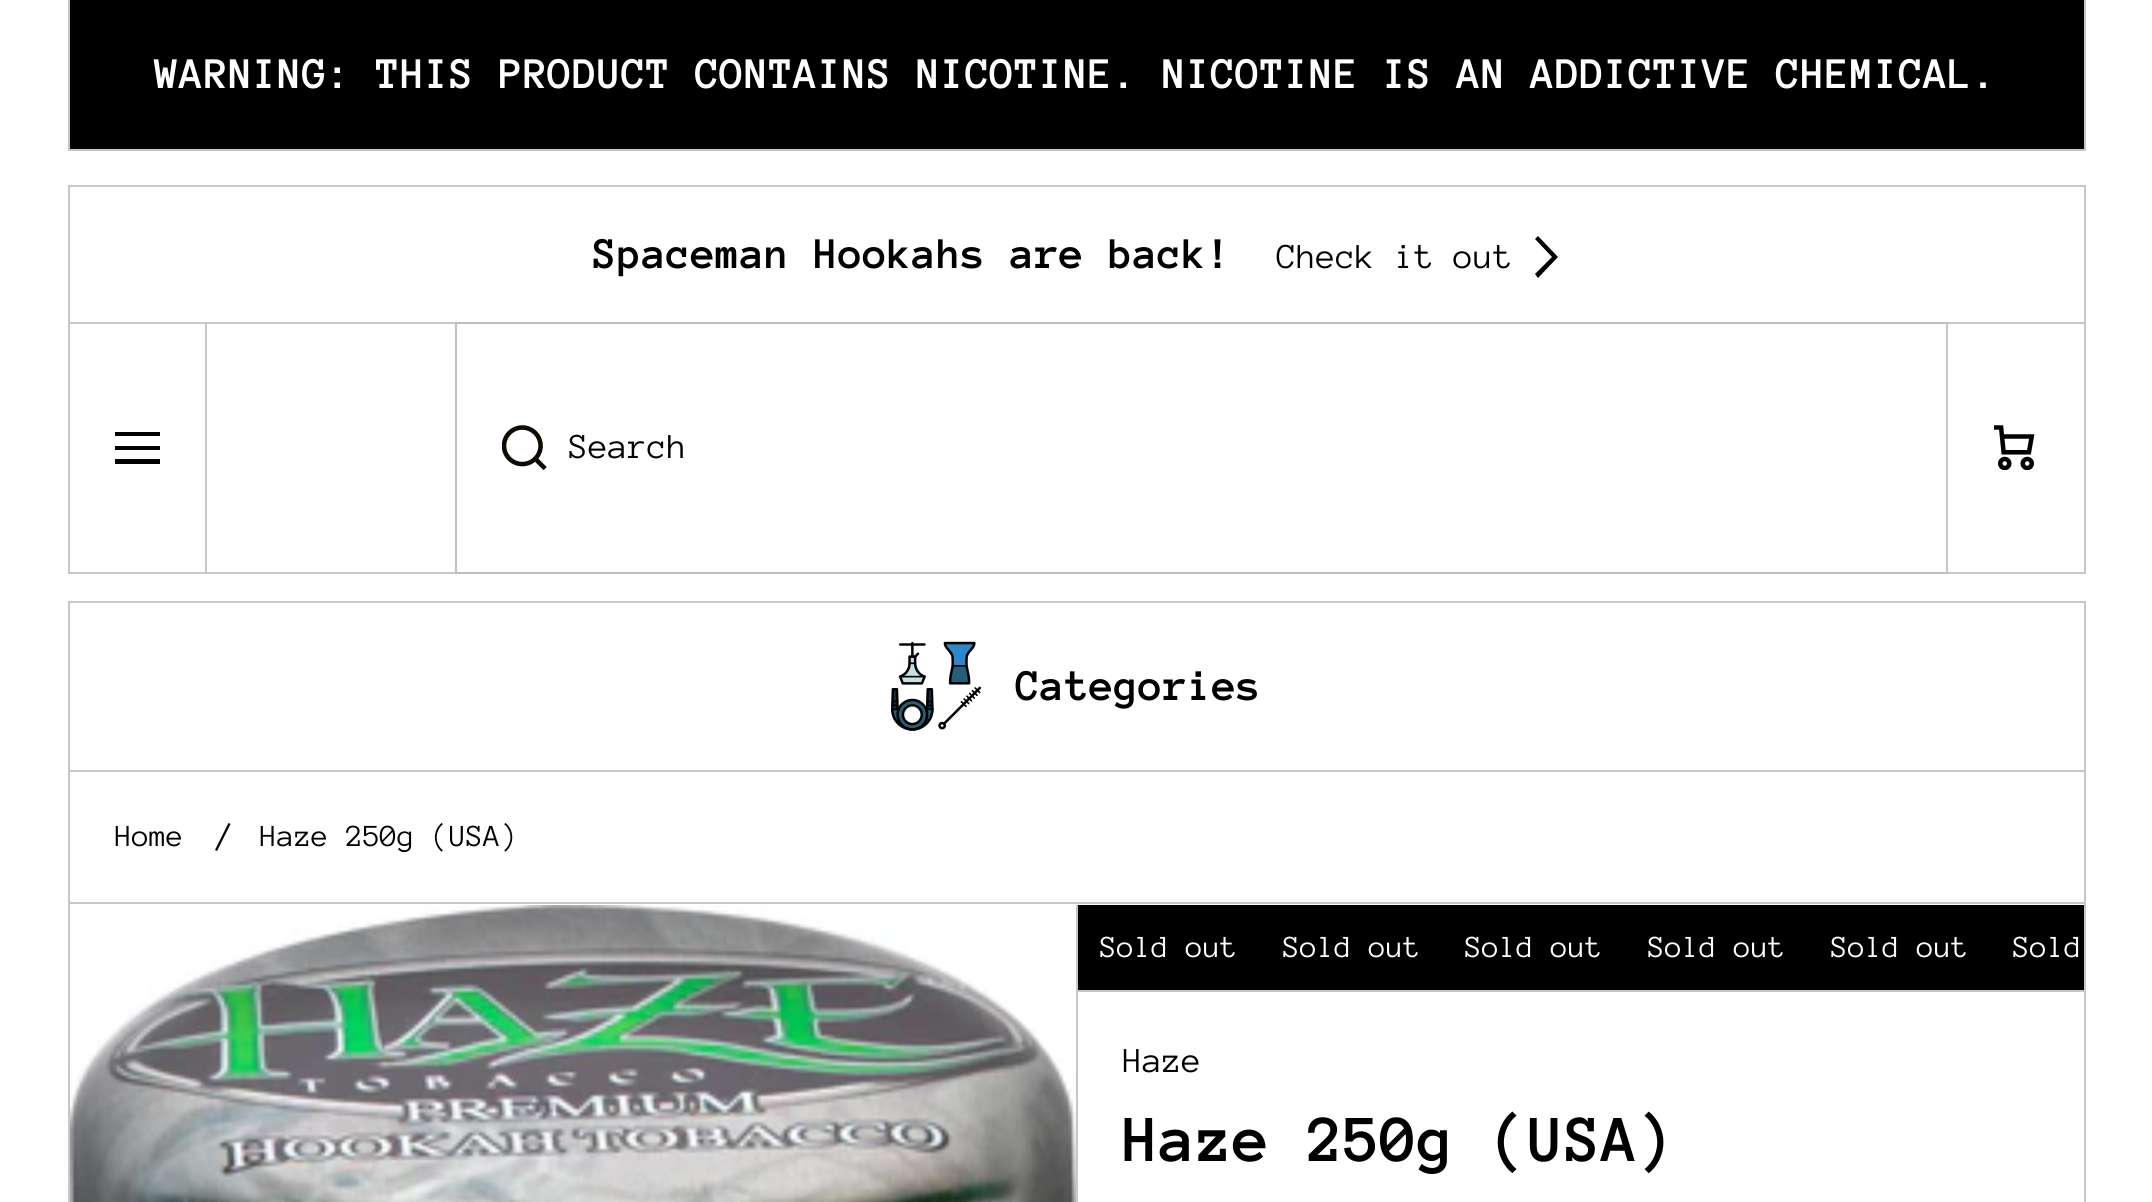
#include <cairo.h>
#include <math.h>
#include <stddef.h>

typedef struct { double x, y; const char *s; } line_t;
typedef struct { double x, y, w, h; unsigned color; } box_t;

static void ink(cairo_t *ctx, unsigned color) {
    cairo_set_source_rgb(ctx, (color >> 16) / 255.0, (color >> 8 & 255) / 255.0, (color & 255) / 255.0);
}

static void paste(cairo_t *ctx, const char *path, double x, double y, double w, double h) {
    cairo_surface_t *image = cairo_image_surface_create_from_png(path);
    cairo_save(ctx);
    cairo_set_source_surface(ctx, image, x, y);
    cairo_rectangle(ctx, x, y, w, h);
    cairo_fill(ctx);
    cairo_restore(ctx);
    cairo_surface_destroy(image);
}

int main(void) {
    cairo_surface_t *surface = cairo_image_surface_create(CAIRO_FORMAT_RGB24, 2152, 1202);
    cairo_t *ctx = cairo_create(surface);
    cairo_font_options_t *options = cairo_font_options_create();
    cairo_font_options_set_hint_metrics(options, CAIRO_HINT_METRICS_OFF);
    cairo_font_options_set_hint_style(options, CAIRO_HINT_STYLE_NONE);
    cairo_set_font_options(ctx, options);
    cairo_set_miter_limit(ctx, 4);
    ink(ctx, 0xFFFFFF);
    cairo_paint(ctx);
    ink(ctx, 0x000000);
    cairo_rectangle(ctx, 70, 0, 2014, 149);
    cairo_fill(ctx);
    cairo_rectangle(ctx, 69, -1, 2016, 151);
    ink(ctx, 0xC7C7C7);
    cairo_stroke(ctx);
    cairo_select_font_face(ctx, "Anonymous Pro", CAIRO_FONT_SLANT_NORMAL, CAIRO_FONT_WEIGHT_BOLD);
    cairo_set_font_size(ctx, 45);
    ink(ctx, 0xFFFFFF);
    cairo_move_to(ctx, 155, 88);
    cairo_show_text(ctx, "WARNING: THIS PRODUCT CONTAINS NICOTINE. NICOTINE IS AN ADDICTIVE CHEMICAL.");
    cairo_rectangle(ctx, 69, 323, 137, 250);
    ink(ctx, 0xC7C7C7);
    cairo_stroke(ctx);
    cairo_rectangle(ctx, 69, 186, 2016, 137);
    cairo_stroke(ctx);
    ink(ctx, 0x000000);
    cairo_move_to(ctx, 593, 268);
    cairo_show_text(ctx, "Spaceman Hookahs are back!");
    cairo_select_font_face(ctx, "Anonymous Pro", CAIRO_FONT_SLANT_NORMAL, CAIRO_FONT_WEIGHT_NORMAL);
    cairo_set_font_size(ctx, 36);
    cairo_move_to(ctx, 1277, 268);
    cairo_show_text(ctx, "Check it out");
    cairo_set_fill_rule(ctx, CAIRO_FILL_RULE_EVEN_ODD);
    cairo_new_path(ctx);
    cairo_move_to(ctx, 1538, 236);
    cairo_line_to(ctx, 1535, 239);
    cairo_line_to(ctx, 1552, 257);
    cairo_line_to(ctx, 1535, 274);
    cairo_line_to(ctx, 1538, 278);
    cairo_line_to(ctx, 1558, 257);
    cairo_close_path(ctx);
    cairo_fill(ctx);
    {
        static const box_t items[] = {
            {115, 432, 45, 4, 0x000000},
            {115, 446, 45, 4, 0x000000},
            {115, 459, 45, 5, 0x000000},
        };
        for (size_t i = 0; i < sizeof items / sizeof *items; i++) {
            ink(ctx, items[i].color);
            cairo_rectangle(ctx, items[i].x, items[i].y, items[i].w, items[i].h);
            cairo_fill(ctx);
        }
    }
    cairo_rectangle(ctx, 206, 323, 250, 250);
    ink(ctx, 0xC7C7C7);
    cairo_stroke(ctx);
    cairo_rectangle(ctx, 456, 323, 1492, 250);
    ink(ctx, 0xBFBFBF);
    cairo_stroke(ctx);
    paste(ctx, "media/1.png", 502, 425, 45, 45);
    ink(ctx, 0x000000);
    cairo_move_to(ctx, 569, 458);
    cairo_show_text(ctx, "Search");
    ink(ctx, 0xFFFFFF);
    cairo_rectangle(ctx, 1948, 324, 1, 248);
    cairo_fill(ctx);
    cairo_rectangle(ctx, 1947, 323, 138, 250);
    ink(ctx, 0xC7C7C7);
    cairo_stroke(ctx);
    paste(ctx, "media/2.png", 1994, 425, 41, 45);
    ink(ctx, 0x000000);
    cairo_new_path(ctx);
    cairo_move_to(ctx, 215, 850);
    cairo_line_to(ctx, 228.5, 823);
    cairo_line_to(ctx, 230.5, 824);
    cairo_line_to(ctx, 217, 851);
    cairo_close_path(ctx);
    cairo_fill(ctx);
    cairo_rectangle(ctx, 69, 771, 2016, 133);
    ink(ctx, 0xC7C7C7);
    cairo_stroke(ctx);
    cairo_rectangle(ctx, 69, 602, 2016, 169);
    cairo_stroke(ctx);
    paste(ctx, "media/3.png", 891, 641, 90, 90);
    cairo_select_font_face(ctx, "Anonymous Pro", CAIRO_FONT_SLANT_NORMAL, CAIRO_FONT_WEIGHT_BOLD);
    cairo_set_font_size(ctx, 45);
    ink(ctx, 0x000000);
    cairo_move_to(ctx, 1016, 700);
    cairo_show_text(ctx, "Categories");
    cairo_select_font_face(ctx, "Anonymous Pro", CAIRO_FONT_SLANT_NORMAL, CAIRO_FONT_WEIGHT_NORMAL);
    cairo_set_font_size(ctx, 31.5);
    cairo_move_to(ctx, 115, 846);
    cairo_show_text(ctx, "Home");
    cairo_move_to(ctx, 260, 846);
    cairo_show_text(ctx, "Haze 250g (USA)");
    ink(ctx, 0xFFFFFF);
    cairo_rectangle(ctx, 70, 904, 2014, 1);
    cairo_fill(ctx);
    paste(ctx, "media/4.png", 70, 905, 1006, 297);
    cairo_save(ctx);
    cairo_set_fill_rule(ctx, CAIRO_FILL_RULE_WINDING);
    cairo_rectangle(ctx, 1076, 905, 1008, 85);
    cairo_clip(ctx);
    cairo_rectangle(ctx, 1077, 903, 1010, 88);
    ink(ctx, 0xC7C7C7);
    cairo_stroke(ctx);
    cairo_restore(ctx);
    ink(ctx, 0x000000);
    cairo_rectangle(ctx, 1078, 905, 1006, 85);
    cairo_fill(ctx);
    cairo_rectangle(ctx, 1077, 991, 1008, 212);
    ink(ctx, 0xC7C7C7);
    cairo_stroke(ctx);
    cairo_rectangle(ctx, 69, 903, 2016, 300);
    cairo_stroke(ctx);
    ink(ctx, 0xFFFFFF);
    {
        static const line_t items[] = {
            {1100, 957, "Sold out"},
            {1283, 957, "Sold out"},
            {1465, 957, "Sold out"},
            {1648, 957, "Sold out"},
            {1831, 957, "Sold out"},
            {2013, 957, "Sold"},
        };
        for (size_t i = 0; i < sizeof items / sizeof *items; i++) {
            cairo_move_to(ctx, items[i].x, items[i].y);
            cairo_show_text(ctx, items[i].s);
        }
    }
    cairo_set_font_size(ctx, 36);
    ink(ctx, 0x000000);
    cairo_move_to(ctx, 1123, 1072);
    cairo_show_text(ctx, "Haze");
    cairo_select_font_face(ctx, "Anonymous Pro", CAIRO_FONT_SLANT_NORMAL, CAIRO_FONT_WEIGHT_BOLD);
    cairo_set_font_size(ctx, 67.5);
    cairo_move_to(ctx, 1123, 1161);
    cairo_show_text(ctx, "Haze 250g (USA)");
    cairo_surface_write_to_png(surface, "image.png");
    cairo_font_options_destroy(options);
    cairo_destroy(ctx);
    cairo_surface_destroy(surface);
    return 0;
}
